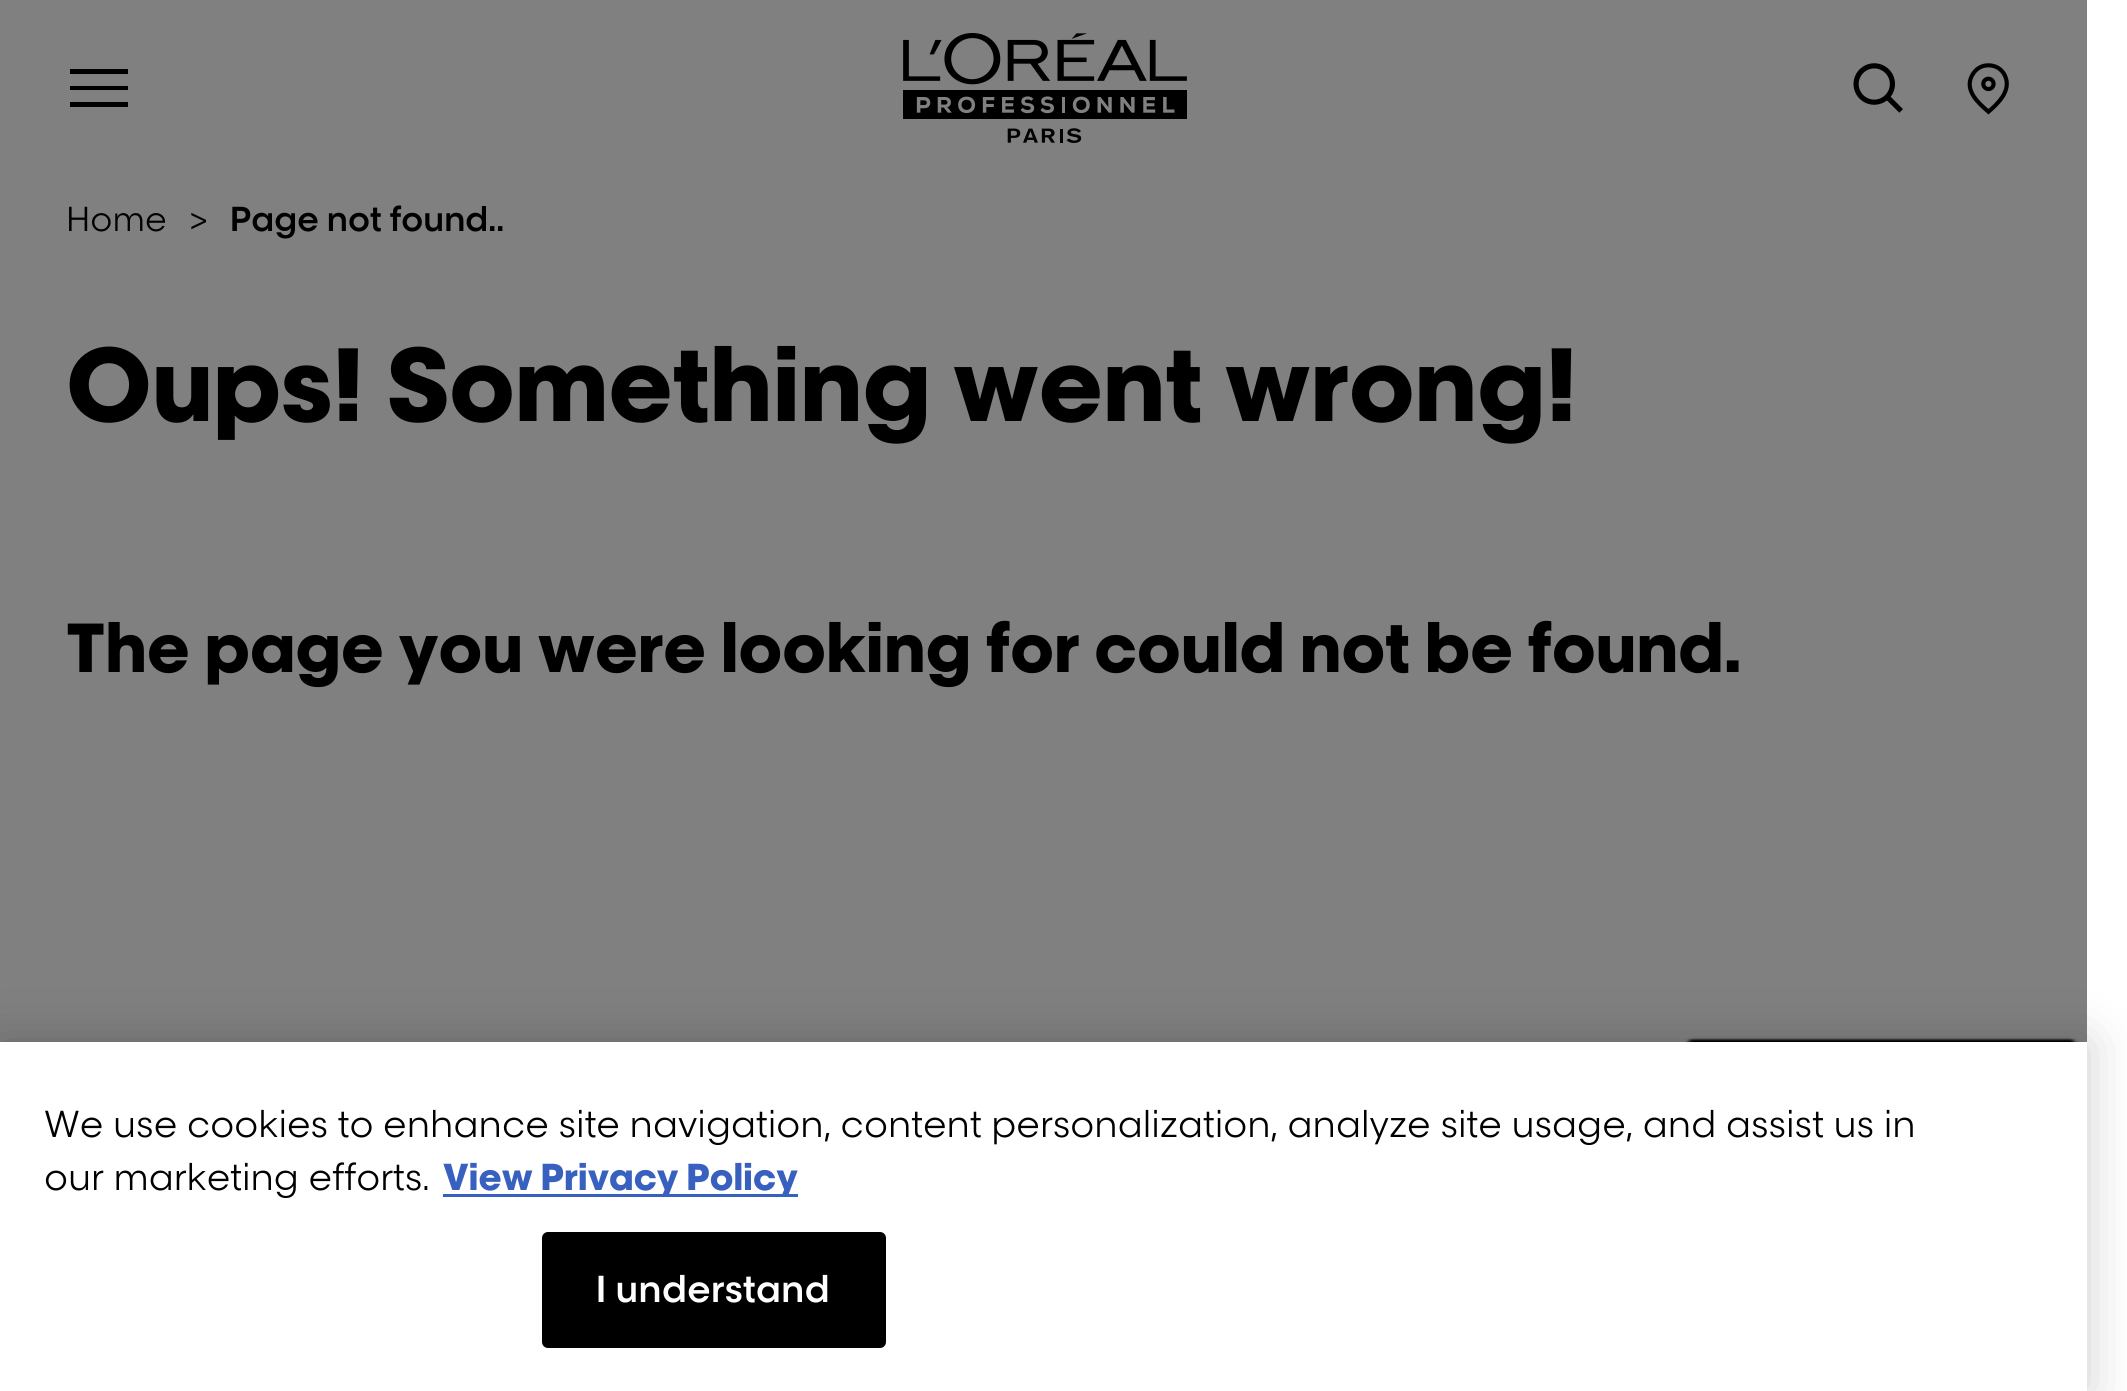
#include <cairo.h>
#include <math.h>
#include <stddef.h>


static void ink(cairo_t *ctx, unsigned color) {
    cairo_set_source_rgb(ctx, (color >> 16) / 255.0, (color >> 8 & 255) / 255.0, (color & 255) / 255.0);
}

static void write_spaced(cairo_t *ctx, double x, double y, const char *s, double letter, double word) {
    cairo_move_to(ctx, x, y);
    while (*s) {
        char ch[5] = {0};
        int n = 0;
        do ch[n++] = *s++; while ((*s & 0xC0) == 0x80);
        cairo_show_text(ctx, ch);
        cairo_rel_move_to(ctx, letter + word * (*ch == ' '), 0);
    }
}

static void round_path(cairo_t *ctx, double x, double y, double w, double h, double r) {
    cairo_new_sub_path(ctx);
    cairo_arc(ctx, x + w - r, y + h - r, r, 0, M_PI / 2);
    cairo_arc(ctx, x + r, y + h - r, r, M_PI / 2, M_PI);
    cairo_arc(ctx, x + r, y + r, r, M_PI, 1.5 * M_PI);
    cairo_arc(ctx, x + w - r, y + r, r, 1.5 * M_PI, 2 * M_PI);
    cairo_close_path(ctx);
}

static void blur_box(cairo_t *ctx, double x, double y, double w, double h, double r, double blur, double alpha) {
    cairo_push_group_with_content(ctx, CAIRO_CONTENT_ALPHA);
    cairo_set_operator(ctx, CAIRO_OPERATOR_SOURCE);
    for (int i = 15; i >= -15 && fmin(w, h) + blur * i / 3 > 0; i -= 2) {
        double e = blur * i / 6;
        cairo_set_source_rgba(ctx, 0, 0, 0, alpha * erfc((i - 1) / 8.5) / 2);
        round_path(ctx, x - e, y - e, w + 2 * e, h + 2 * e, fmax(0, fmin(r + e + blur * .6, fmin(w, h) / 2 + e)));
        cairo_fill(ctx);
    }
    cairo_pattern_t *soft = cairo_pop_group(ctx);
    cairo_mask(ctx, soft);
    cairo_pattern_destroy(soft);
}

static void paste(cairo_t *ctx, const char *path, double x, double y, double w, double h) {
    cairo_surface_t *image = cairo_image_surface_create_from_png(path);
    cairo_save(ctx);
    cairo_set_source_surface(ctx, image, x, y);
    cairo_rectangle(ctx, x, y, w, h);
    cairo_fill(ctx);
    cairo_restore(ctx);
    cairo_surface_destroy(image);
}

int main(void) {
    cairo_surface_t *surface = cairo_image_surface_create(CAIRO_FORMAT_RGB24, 2127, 1391);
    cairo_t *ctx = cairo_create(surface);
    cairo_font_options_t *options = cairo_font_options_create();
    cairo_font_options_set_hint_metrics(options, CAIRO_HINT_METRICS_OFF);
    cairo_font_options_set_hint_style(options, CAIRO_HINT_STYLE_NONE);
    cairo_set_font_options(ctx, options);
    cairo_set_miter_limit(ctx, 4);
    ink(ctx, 0xFFFFFF);
    cairo_paint(ctx);
    ink(ctx, 0x808080);
    cairo_rectangle(ctx, 0, 0, 2087, 1042);
    cairo_fill(ctx);
    ink(ctx, 0x000000);
    cairo_set_fill_rule(ctx, CAIRO_FILL_RULE_EVEN_ODD);
    cairo_new_path(ctx);
    cairo_move_to(ctx, 128, 74);
    cairo_line_to(ctx, 70, 74);
    cairo_line_to(ctx, 70, 69);
    cairo_line_to(ctx, 128, 69);
    cairo_close_path(ctx);
    cairo_move_to(ctx, 128, 107);
    cairo_line_to(ctx, 70, 107);
    cairo_line_to(ctx, 70, 102);
    cairo_line_to(ctx, 128, 102);
    cairo_close_path(ctx);
    cairo_move_to(ctx, 128, 90);
    cairo_line_to(ctx, 70, 90);
    cairo_line_to(ctx, 70, 86);
    cairo_line_to(ctx, 128, 86);
    cairo_close_path(ctx);
    cairo_fill(ctx);
    paste(ctx, "media/1.png", 903, 33, 284, 110);
    paste(ctx, "media/2.png", 1853, 63, 50, 50);
    paste(ctx, "media/3.png", 1967, 63, 42, 52);
    cairo_select_font_face(ctx, "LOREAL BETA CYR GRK", CAIRO_FONT_SLANT_NORMAL, CAIRO_FONT_WEIGHT_NORMAL);
    cairo_set_font_size(ctx, 33);
    cairo_move_to(ctx, 66, 231);
    cairo_show_text(ctx, "Home");
    cairo_move_to(ctx, 189, 231);
    cairo_show_text(ctx, ">");
    cairo_select_font_face(ctx, "LOREAL BETA CYR GRK SemiBold", CAIRO_FONT_SLANT_NORMAL, CAIRO_FONT_WEIGHT_NORMAL);
    cairo_move_to(ctx, 230, 231);
    cairo_show_text(ctx, "Page not found..");
    cairo_select_font_face(ctx, "LOREAL BETA CYR GRK", CAIRO_FONT_SLANT_NORMAL, CAIRO_FONT_WEIGHT_BOLD);
    cairo_set_font_size(ctx, 99);
    cairo_move_to(ctx, 66, 421);
    cairo_show_text(ctx, "Oups! Something went wrong!");
    cairo_set_font_size(ctx, 66);
    cairo_move_to(ctx, 66, 672);
    cairo_show_text(ctx, "The page you were looking for could not be found.");
    paste(ctx, "media/4.png", 1683, 1036, 397, 6);
    ink(ctx, 0x000000);
    blur_box(ctx, 0, 1042, 2087, 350, 0, 25, 0.2);
    ink(ctx, 0xFFFFFF);
    cairo_rectangle(ctx, 0, 1042, 2087, 349);
    cairo_fill(ctx);
    cairo_select_font_face(ctx, "LOREAL BETA CYR GRK", CAIRO_FONT_SLANT_NORMAL, CAIRO_FONT_WEIGHT_NORMAL);
    cairo_set_font_size(ctx, 35.77);
    ink(ctx, 0x000000);
    cairo_move_to(ctx, 44, 1137);
    cairo_show_text(ctx, "We use cookies to enhance site navigation, content personalization, analyze site usage, and assist us in");
    cairo_move_to(ctx, 44, 1190);
    cairo_show_text(ctx, "our marketing efforts.");
    ink(ctx, 0x3860BE);
    cairo_rectangle(ctx, 443, 1194, 355, 3);
    cairo_fill(ctx);
    cairo_select_font_face(ctx, "LOREAL BETA CYR GRK", CAIRO_FONT_SLANT_NORMAL, CAIRO_FONT_WEIGHT_BOLD);
    cairo_move_to(ctx, 443, 1190);
    cairo_show_text(ctx, "View Privacy Policy");
    ink(ctx, 0x000000);
    round_path(ctx, 543.5, 1233.5, 341, 113, 4.5);
    cairo_fill_preserve(ctx);
    cairo_set_line_width(ctx, 3);
    cairo_stroke(ctx);
    cairo_select_font_face(ctx, "LOREAL BETA CYR GRK SemiBold", CAIRO_FONT_SLANT_NORMAL, CAIRO_FONT_WEIGHT_NORMAL);
    ink(ctx, 0xFFFFFF);
    write_spaced(ctx, 596, 1302, "I understand", 0.4, 0);
    cairo_surface_write_to_png(surface, "image.png");
    cairo_font_options_destroy(options);
    cairo_destroy(ctx);
    cairo_surface_destroy(surface);
    return 0;
}
